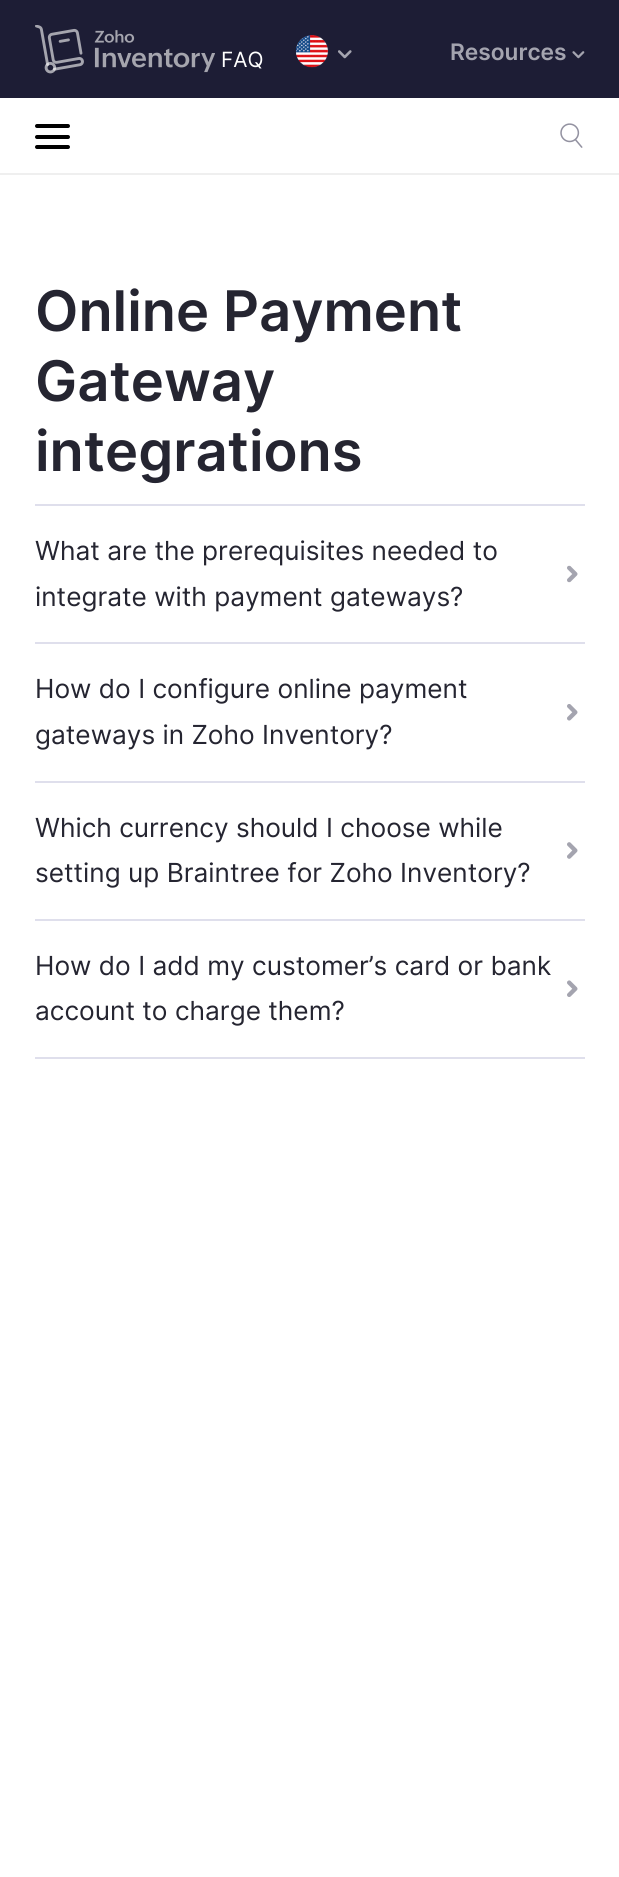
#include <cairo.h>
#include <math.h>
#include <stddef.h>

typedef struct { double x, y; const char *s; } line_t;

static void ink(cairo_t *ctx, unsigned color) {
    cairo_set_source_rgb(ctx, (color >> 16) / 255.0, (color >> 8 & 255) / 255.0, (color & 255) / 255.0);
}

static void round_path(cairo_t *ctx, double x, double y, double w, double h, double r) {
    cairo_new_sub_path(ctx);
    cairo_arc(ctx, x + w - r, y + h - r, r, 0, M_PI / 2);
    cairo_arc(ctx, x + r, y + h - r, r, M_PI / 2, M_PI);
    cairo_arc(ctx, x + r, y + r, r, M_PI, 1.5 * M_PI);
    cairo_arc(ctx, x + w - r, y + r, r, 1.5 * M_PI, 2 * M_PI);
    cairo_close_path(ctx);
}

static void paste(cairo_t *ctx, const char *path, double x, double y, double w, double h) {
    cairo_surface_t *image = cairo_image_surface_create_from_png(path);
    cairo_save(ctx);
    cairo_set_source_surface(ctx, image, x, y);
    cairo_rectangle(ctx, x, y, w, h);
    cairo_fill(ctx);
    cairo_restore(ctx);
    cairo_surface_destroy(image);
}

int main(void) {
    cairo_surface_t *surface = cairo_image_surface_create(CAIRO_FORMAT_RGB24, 619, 1877);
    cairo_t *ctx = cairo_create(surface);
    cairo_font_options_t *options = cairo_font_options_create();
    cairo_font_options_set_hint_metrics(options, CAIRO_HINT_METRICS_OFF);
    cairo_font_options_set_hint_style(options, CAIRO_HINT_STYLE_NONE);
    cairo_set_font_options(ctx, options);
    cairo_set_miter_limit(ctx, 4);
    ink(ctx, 0xFFFFFF);
    cairo_paint(ctx);
    ink(ctx, 0x1D1D35);
    cairo_rectangle(ctx, 0, 0, 619, 98);
    cairo_fill(ctx);
    paste(ctx, "media/1.png", 35, 25, 180, 49);
    cairo_select_font_face(ctx, "Inter", CAIRO_FONT_SLANT_NORMAL, CAIRO_FONT_WEIGHT_NORMAL);
    cairo_set_font_size(ctx, 21);
    ink(ctx, 0xFFFFFF);
    cairo_move_to(ctx, 221, 67);
    cairo_show_text(ctx, "FAQ");
    paste(ctx, "media/2.png", 296, 35, 33, 33);
    paste(ctx, "media/3.png", 338, 50, 14, 9);
    cairo_select_font_face(ctx, "Inter SemiBold", CAIRO_FONT_SLANT_NORMAL, CAIRO_FONT_WEIGHT_NORMAL);
    cairo_set_font_size(ctx, 22.75);
    ink(ctx, 0xA4A4AF);
    cairo_move_to(ctx, 450, 60);
    cairo_show_text(ctx, "Resources");
    paste(ctx, "media/4.png", 572, 51, 13, 8);
    ink(ctx, 0xEFEFEF);
    cairo_rectangle(ctx, 0, 173, 619, 2);
    cairo_fill(ctx);
    ink(ctx, 0x000000);
    round_path(ctx, 35, 124, 35, 4, 2);
    cairo_fill(ctx);
    round_path(ctx, 35, 135, 35, 4, 2);
    cairo_fill(ctx);
    round_path(ctx, 35, 145, 35, 4, 2);
    cairo_fill(ctx);
    paste(ctx, "media/5.png", 560, 123, 23, 25);
    cairo_set_font_size(ctx, 56);
    ink(ctx, 0x252531);
    {
        static const line_t items[] = {
            {35, 331, "Online Payment"},
            {35, 401, "Gateway"},
            {35, 471, "integrations"},
        };
        for (size_t i = 0; i < sizeof items / sizeof *items; i++) {
            cairo_move_to(ctx, items[i].x, items[i].y);
            cairo_show_text(ctx, items[i].s);
        }
    }
    ink(ctx, 0xDFDFEC);
    cairo_rectangle(ctx, 35, 504, 550, 2);
    cairo_fill(ctx);
    cairo_select_font_face(ctx, "Inter", CAIRO_FONT_SLANT_NORMAL, CAIRO_FONT_WEIGHT_NORMAL);
    cairo_set_font_size(ctx, 26.25);
    ink(ctx, 0x252531);
    cairo_move_to(ctx, 35, 560);
    cairo_show_text(ctx, "What are the prerequisites needed to");
    cairo_move_to(ctx, 35, 606);
    cairo_show_text(ctx, "integrate with payment gateways?");
    paste(ctx, "media/6.png", 567, 565, 11, 18);
    ink(ctx, 0xDFDFEC);
    cairo_rectangle(ctx, 35, 642, 550, 2);
    cairo_fill(ctx);
    ink(ctx, 0x252531);
    cairo_move_to(ctx, 35, 698);
    cairo_show_text(ctx, "How do I configure online payment");
    cairo_move_to(ctx, 35, 744);
    cairo_show_text(ctx, "gateways in Zoho Inventory?");
    paste(ctx, "media/7.png", 567, 704, 11, 17);
    ink(ctx, 0xDFDFEC);
    cairo_rectangle(ctx, 35, 781, 550, 2);
    cairo_fill(ctx);
    ink(ctx, 0x252531);
    cairo_move_to(ctx, 35, 837);
    cairo_show_text(ctx, "Which currency should I choose while");
    cairo_move_to(ctx, 35, 882);
    cairo_show_text(ctx, "setting up Braintree for Zoho Inventory?");
    paste(ctx, "media/8.png", 567, 842, 11, 17);
    ink(ctx, 0xDFDFEC);
    cairo_rectangle(ctx, 35, 919, 550, 2);
    cairo_fill(ctx);
    cairo_rectangle(ctx, 35, 1057, 550, 2);
    cairo_fill(ctx);
    ink(ctx, 0x252531);
    cairo_move_to(ctx, 35, 975);
    cairo_show_text(ctx, "How do I add my customer’s card or bank");
    cairo_move_to(ctx, 35, 1020);
    cairo_show_text(ctx, "account to charge them?");
    paste(ctx, "media/9.png", 567, 980, 11, 17);
    cairo_surface_write_to_png(surface, "image.png");
    cairo_font_options_destroy(options);
    cairo_destroy(ctx);
    cairo_surface_destroy(surface);
    return 0;
}
